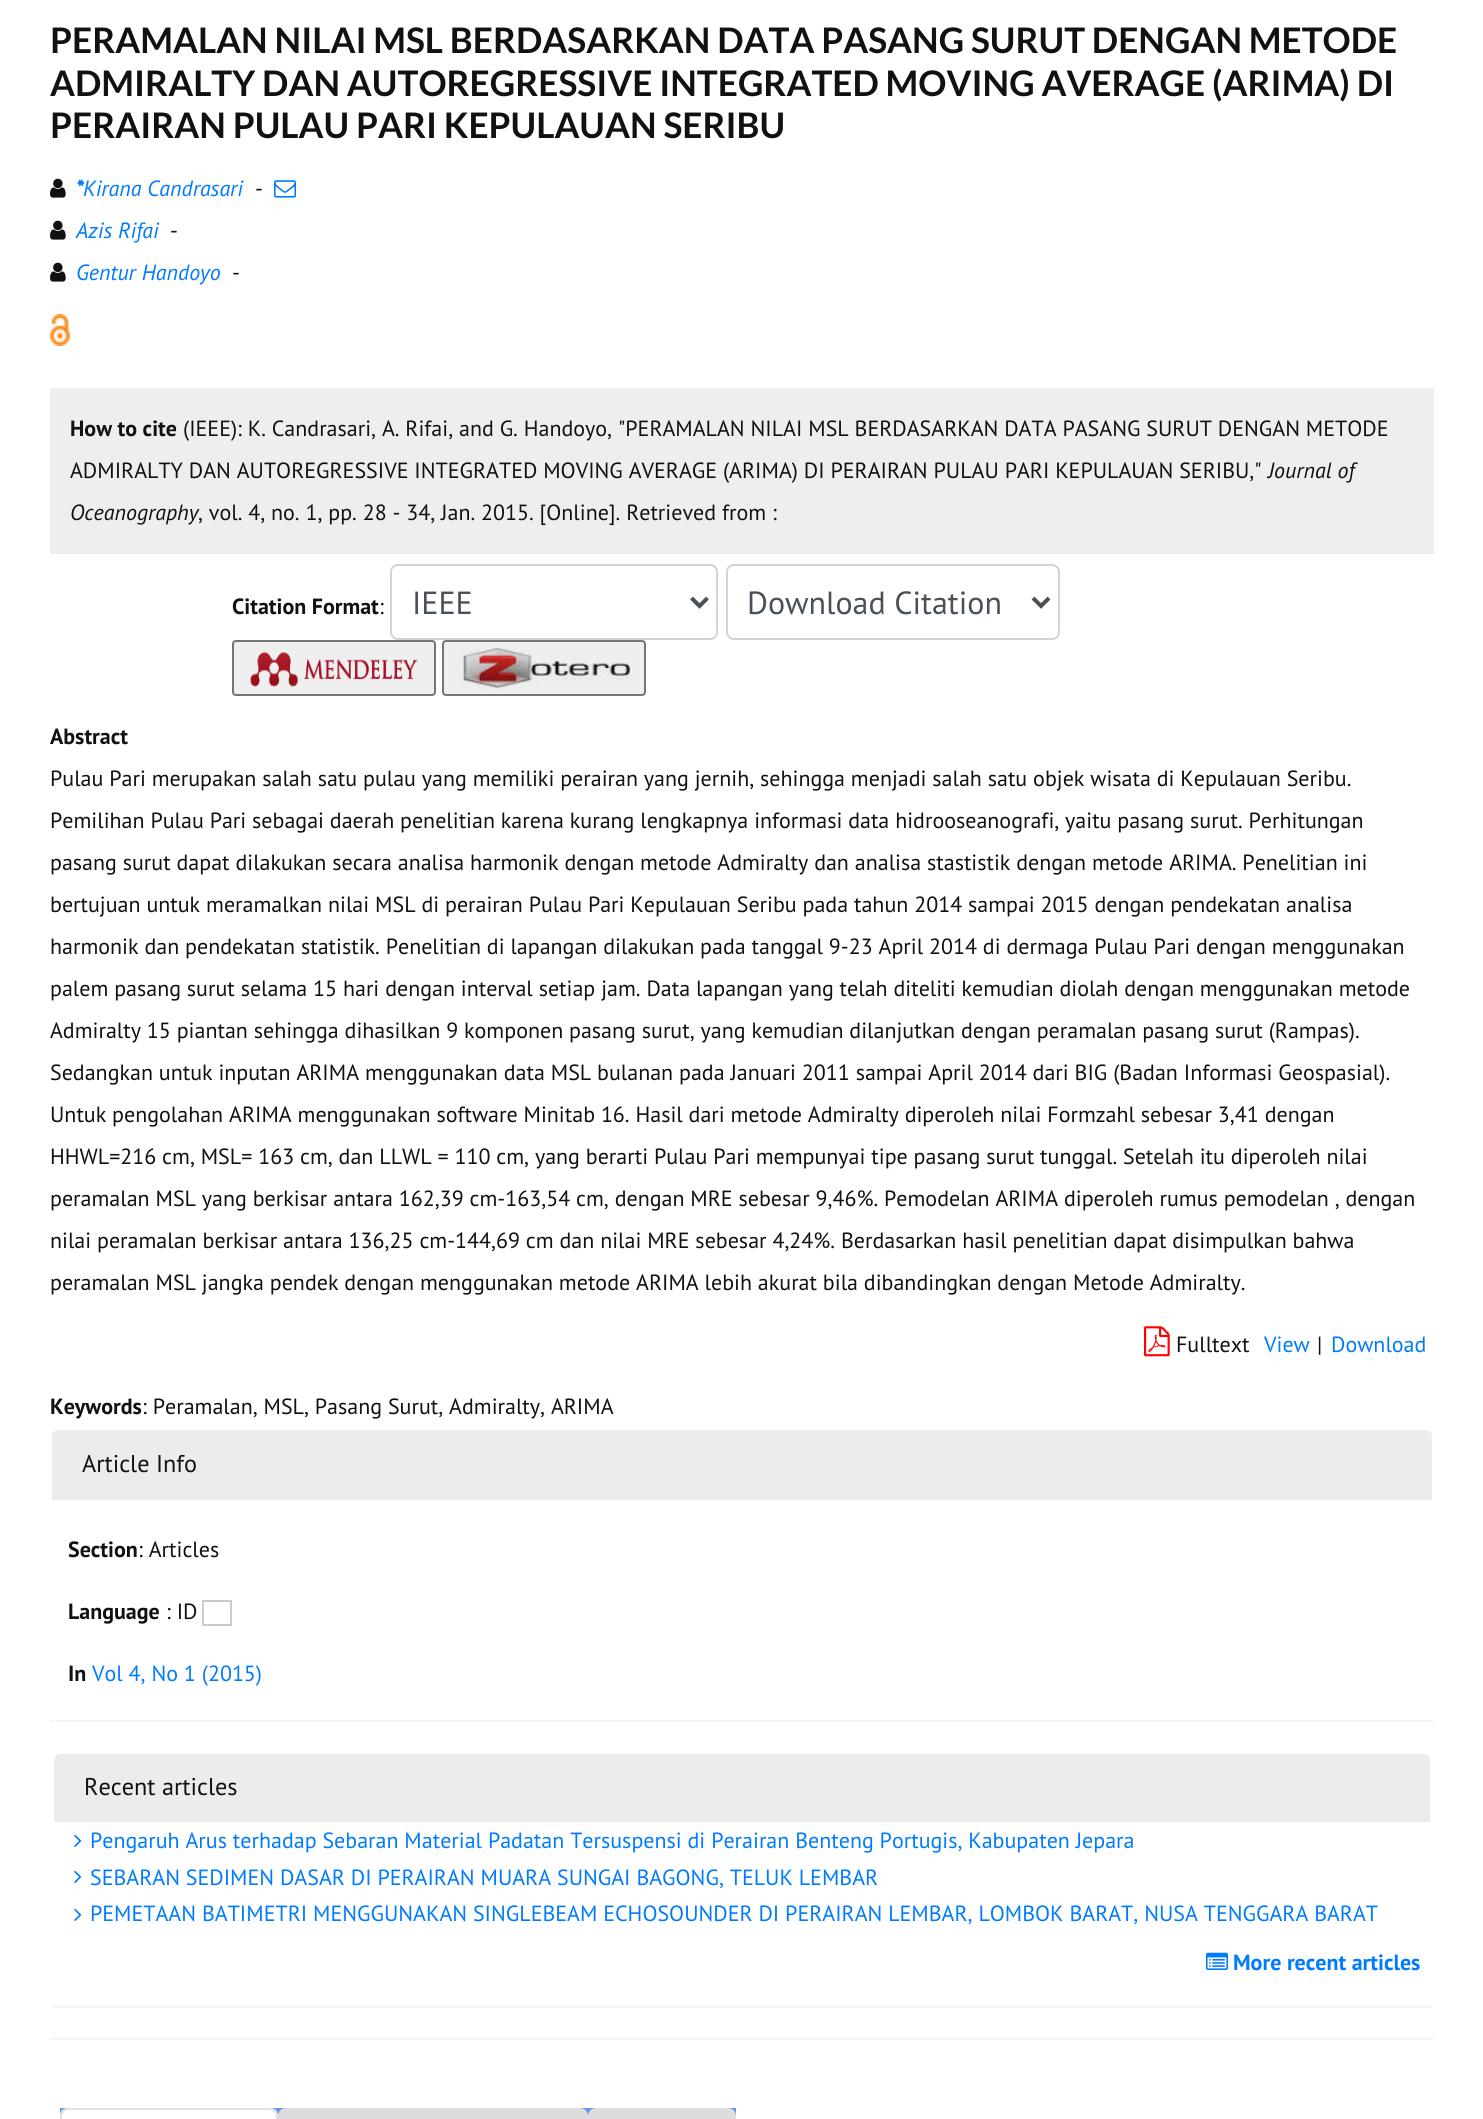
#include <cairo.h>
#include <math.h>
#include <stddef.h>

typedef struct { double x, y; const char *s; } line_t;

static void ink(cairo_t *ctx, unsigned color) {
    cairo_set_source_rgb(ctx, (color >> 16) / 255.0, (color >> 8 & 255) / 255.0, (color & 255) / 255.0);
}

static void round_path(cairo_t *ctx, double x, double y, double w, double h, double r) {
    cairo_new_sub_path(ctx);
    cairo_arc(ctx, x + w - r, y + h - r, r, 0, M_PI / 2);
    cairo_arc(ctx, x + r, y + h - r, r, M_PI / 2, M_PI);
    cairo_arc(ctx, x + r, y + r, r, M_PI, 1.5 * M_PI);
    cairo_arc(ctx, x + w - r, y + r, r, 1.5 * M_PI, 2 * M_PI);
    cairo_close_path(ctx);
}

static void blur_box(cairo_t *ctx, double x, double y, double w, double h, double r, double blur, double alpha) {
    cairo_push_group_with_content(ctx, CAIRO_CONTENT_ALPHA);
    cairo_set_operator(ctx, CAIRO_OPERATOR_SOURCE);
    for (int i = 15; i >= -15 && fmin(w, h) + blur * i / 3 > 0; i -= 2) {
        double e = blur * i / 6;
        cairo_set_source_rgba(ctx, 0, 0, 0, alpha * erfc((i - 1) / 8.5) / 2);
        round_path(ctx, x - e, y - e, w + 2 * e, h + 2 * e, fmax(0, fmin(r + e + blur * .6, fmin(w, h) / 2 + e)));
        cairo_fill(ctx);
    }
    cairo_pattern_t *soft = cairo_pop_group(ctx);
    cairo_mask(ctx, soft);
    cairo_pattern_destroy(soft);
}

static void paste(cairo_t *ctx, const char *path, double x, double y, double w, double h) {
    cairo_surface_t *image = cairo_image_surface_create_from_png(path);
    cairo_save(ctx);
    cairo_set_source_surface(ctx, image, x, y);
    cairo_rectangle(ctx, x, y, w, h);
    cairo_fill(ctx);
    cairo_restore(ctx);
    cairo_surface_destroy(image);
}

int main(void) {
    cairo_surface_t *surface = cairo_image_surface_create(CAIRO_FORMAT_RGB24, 1483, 2119);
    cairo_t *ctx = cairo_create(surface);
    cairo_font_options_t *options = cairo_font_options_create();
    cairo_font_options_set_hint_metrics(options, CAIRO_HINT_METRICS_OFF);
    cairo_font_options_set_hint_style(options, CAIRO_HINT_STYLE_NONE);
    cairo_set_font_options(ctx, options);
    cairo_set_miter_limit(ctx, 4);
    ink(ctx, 0xFFFFFF);
    cairo_paint(ctx);
    cairo_select_font_face(ctx, "Lato", CAIRO_FONT_SLANT_NORMAL, CAIRO_FONT_WEIGHT_BOLD);
    cairo_set_font_size(ctx, 35.2);
    ink(ctx, 0x111111);
    {
        static const line_t items[] = {
            {50, 53, "PERAMALAN NILAI MSL BERDASARKAN DATA PASANG SURUT DENGAN METODE"},
            {50, 96, "ADMIRALTY DAN AUTOREGRESSIVE INTEGRATED MOVING AVERAGE (ARIMA) DI"},
            {50, 138, "PERAIRAN PULAU PARI KEPULAUAN SERIBU"},
        };
        for (size_t i = 0; i < sizeof items / sizeof *items; i++) {
            cairo_move_to(ctx, items[i].x, items[i].y);
            cairo_show_text(ctx, items[i].s);
        }
    }
    paste(ctx, "media/1.png", 50, 178, 16, 20);
    cairo_select_font_face(ctx, "PT Sans", CAIRO_FONT_SLANT_ITALIC, CAIRO_FONT_WEIGHT_BOLD);
    cairo_set_font_size(ctx, 22);
    ink(ctx, 0x007BFF);
    cairo_move_to(ctx, 76, 196);
    cairo_show_text(ctx, "*");
    cairo_select_font_face(ctx, "PT Sans", CAIRO_FONT_SLANT_ITALIC, CAIRO_FONT_WEIGHT_NORMAL);
    cairo_move_to(ctx, 83, 196);
    cairo_show_text(ctx, "Kirana Candrasari");
    cairo_select_font_face(ctx, "PT Sans", CAIRO_FONT_SLANT_NORMAL, CAIRO_FONT_WEIGHT_NORMAL);
    ink(ctx, 0x111111);
    cairo_move_to(ctx, 255, 196);
    cairo_show_text(ctx, "-");
    paste(ctx, "media/2.png", 274, 180, 22, 18);
    paste(ctx, "media/1.png", 50, 220, 16, 20);
    cairo_select_font_face(ctx, "PT Sans", CAIRO_FONT_SLANT_ITALIC, CAIRO_FONT_WEIGHT_NORMAL);
    ink(ctx, 0x007BFF);
    cairo_move_to(ctx, 76, 238);
    cairo_show_text(ctx, "Azis Rifai");
    cairo_select_font_face(ctx, "PT Sans", CAIRO_FONT_SLANT_NORMAL, CAIRO_FONT_WEIGHT_NORMAL);
    ink(ctx, 0x111111);
    cairo_move_to(ctx, 170, 238);
    cairo_show_text(ctx, "-");
    paste(ctx, "media/1.png", 50, 262, 16, 20);
    cairo_select_font_face(ctx, "PT Sans", CAIRO_FONT_SLANT_ITALIC, CAIRO_FONT_WEIGHT_NORMAL);
    ink(ctx, 0x007BFF);
    cairo_move_to(ctx, 76, 280);
    cairo_show_text(ctx, "Gentur Handoyo");
    cairo_select_font_face(ctx, "PT Sans", CAIRO_FONT_SLANT_NORMAL, CAIRO_FONT_WEIGHT_NORMAL);
    ink(ctx, 0x111111);
    cairo_move_to(ctx, 232, 280);
    cairo_show_text(ctx, "-");
    paste(ctx, "media/3.png", 50, 314, 20, 32);
    ink(ctx, 0xEEEEEE);
    cairo_rectangle(ctx, 50, 388, 1384, 166);
    cairo_fill(ctx);
    cairo_select_font_face(ctx, "PT Sans", CAIRO_FONT_SLANT_NORMAL, CAIRO_FONT_WEIGHT_BOLD);
    ink(ctx, 0x111111);
    cairo_move_to(ctx, 70, 436);
    cairo_show_text(ctx, "How to cite");
    cairo_select_font_face(ctx, "PT Sans", CAIRO_FONT_SLANT_NORMAL, CAIRO_FONT_WEIGHT_NORMAL);
    cairo_move_to(ctx, 183, 436);
    cairo_show_text(ctx, "(IEEE): K. Candrasari, A. Rifai, and G. Handoyo, \"PERAMALAN NILAI MSL BERDASARKAN DATA PASANG SURUT DENGAN METODE");
    cairo_move_to(ctx, 70, 478);
    cairo_show_text(ctx, "ADMIRALTY DAN AUTOREGRESSIVE INTEGRATED MOVING AVERAGE (ARIMA) DI PERAIRAN PULAU PARI KEPULAUAN SERIBU,\"");
    cairo_select_font_face(ctx, "PT Sans", CAIRO_FONT_SLANT_ITALIC, CAIRO_FONT_WEIGHT_NORMAL);
    cairo_move_to(ctx, 1268, 478);
    cairo_show_text(ctx, "Journal of");
    cairo_move_to(ctx, 70, 520);
    cairo_show_text(ctx, "Oceanography");
    cairo_select_font_face(ctx, "PT Sans", CAIRO_FONT_SLANT_NORMAL, CAIRO_FONT_WEIGHT_NORMAL);
    cairo_move_to(ctx, 198, 520);
    cairo_show_text(ctx, ", vol. 4, no. 1, pp. 28 - 34, Jan. 2015. [Online]. Retrieved from :");
    cairo_select_font_face(ctx, "PT Sans", CAIRO_FONT_SLANT_NORMAL, CAIRO_FONT_WEIGHT_BOLD);
    cairo_move_to(ctx, 232, 614);
    cairo_show_text(ctx, "Citation Format");
    cairo_select_font_face(ctx, "PT Sans", CAIRO_FONT_SLANT_NORMAL, CAIRO_FONT_WEIGHT_NORMAL);
    cairo_move_to(ctx, 379, 614);
    cairo_show_text(ctx, ":");
    round_path(ctx, 391, 565, 326, 74, 7);
    ink(ctx, 0xCED4DA);
    cairo_stroke(ctx);
    cairo_new_path(ctx);
    cairo_move_to(ctx, 691.5, 598);
    cairo_line_to(ctx, 699.5, 606);
    cairo_line_to(ctx, 707.5, 598);
    ink(ctx, 0x495057);
    cairo_set_line_width(ctx, 4);
    cairo_stroke(ctx);
    cairo_set_font_size(ctx, 32);
    cairo_move_to(ctx, 412, 614);
    cairo_show_text(ctx, "IEEE");
    round_path(ctx, 727, 565, 332, 74, 7);
    ink(ctx, 0xCED4DA);
    cairo_set_line_width(ctx, 2);
    cairo_stroke(ctx);
    cairo_new_path(ctx);
    cairo_move_to(ctx, 1033, 598);
    cairo_line_to(ctx, 1041, 606);
    cairo_line_to(ctx, 1049, 598);
    ink(ctx, 0x495057);
    cairo_set_line_width(ctx, 4);
    cairo_stroke(ctx);
    cairo_move_to(ctx, 747, 614);
    cairo_show_text(ctx, "Download Citation");
    ink(ctx, 0xEFEFEF);
    round_path(ctx, 233, 641, 202, 54, 3);
    cairo_fill_preserve(ctx);
    ink(ctx, 0x767676);
    cairo_set_line_width(ctx, 2);
    cairo_stroke(ctx);
    paste(ctx, "media/4.png", 250, 652, 168, 35);
    ink(ctx, 0xEFEFEF);
    round_path(ctx, 443, 641, 202, 54, 3);
    cairo_fill_preserve(ctx);
    ink(ctx, 0x767676);
    cairo_stroke(ctx);
    paste(ctx, "media/5.png", 458, 646, 172, 44);
    cairo_select_font_face(ctx, "PT Sans", CAIRO_FONT_SLANT_NORMAL, CAIRO_FONT_WEIGHT_BOLD);
    cairo_set_font_size(ctx, 22);
    ink(ctx, 0x111111);
    cairo_move_to(ctx, 50, 744);
    cairo_show_text(ctx, "Abstract");
    cairo_select_font_face(ctx, "PT Sans", CAIRO_FONT_SLANT_NORMAL, CAIRO_FONT_WEIGHT_NORMAL);
    {
        static const line_t items[] = {
            {50, 786, "Pulau Pari merupakan salah satu pulau yang memiliki perairan yang jernih, sehingga menjadi salah satu objek wisata di Kepulauan Seribu."},
            {50, 828, "Pemilihan Pulau Pari sebagai daerah penelitian karena kurang lengkapnya informasi data hidrooseanografi, yaitu pasang surut. Perhitungan"},
            {50, 870, "pasang surut dapat dilakukan secara analisa harmonik dengan metode Admiralty dan analisa stastistik dengan metode ARIMA. Penelitian ini"},
            {50, 912, "bertujuan untuk meramalkan nilai MSL di perairan Pulau Pari Kepulauan Seribu pada tahun 2014 sampai 2015 dengan pendekatan analisa"},
            {50, 954, "harmonik dan pendekatan statistik. Penelitian di lapangan dilakukan pada tanggal 9-23 April 2014 di dermaga Pulau Pari dengan menggunakan"},
            {50, 996, "palem pasang surut selama 15 hari dengan interval setiap jam. Data lapangan yang telah diteliti kemudian diolah dengan menggunakan metode"},
            {50, 1038, "Admiralty 15 piantan sehingga dihasilkan 9 komponen pasang surut, yang kemudian dilanjutkan dengan peramalan pasang surut (Rampas)."},
            {50, 1080, "Sedangkan untuk inputan ARIMA menggunakan data MSL bulanan pada Januari 2011 sampai April 2014 dari BIG (Badan Informasi Geospasial)."},
            {50, 1122, "Untuk pengolahan ARIMA menggunakan software Minitab 16. Hasil dari metode Admiralty diperoleh nilai Formzahl sebesar 3,41 dengan"},
            {50, 1164, "HHWL=216 cm, MSL= 163 cm, dan LLWL = 110 cm, yang berarti Pulau Pari mempunyai tipe pasang surut tunggal. Setelah itu diperoleh nilai"},
            {50, 1206, "peramalan MSL yang berkisar antara 162,39 cm-163,54 cm, dengan MRE sebesar 9,46%. Pemodelan ARIMA diperoleh rumus pemodelan , dengan"},
            {50, 1248, "nilai peramalan berkisar antara 136,25 cm-144,69 cm dan nilai MRE sebesar 4,24%. Berdasarkan hasil penelitian dapat disimpulkan bahwa"},
            {50, 1290, "peramalan MSL jangka pendek dengan menggunakan metode ARIMA lebih akurat bila dibandingkan dengan Metode Admiralty."},
        };
        for (size_t i = 0; i < sizeof items / sizeof *items; i++) {
            cairo_move_to(ctx, items[i].x, items[i].y);
            cairo_show_text(ctx, items[i].s);
        }
    }
    paste(ctx, "media/6.png", 1144, 1326, 26, 31);
    cairo_move_to(ctx, 1176, 1352);
    cairo_show_text(ctx, "Fulltext");
    ink(ctx, 0x007BFF);
    cairo_move_to(ctx, 1264, 1352);
    cairo_show_text(ctx, "View");
    ink(ctx, 0x111111);
    cairo_move_to(ctx, 1317, 1352);
    cairo_show_text(ctx, "|");
    ink(ctx, 0x007BFF);
    cairo_move_to(ctx, 1331, 1352);
    cairo_show_text(ctx, "Download");
    cairo_select_font_face(ctx, "PT Sans", CAIRO_FONT_SLANT_NORMAL, CAIRO_FONT_WEIGHT_BOLD);
    ink(ctx, 0x111111);
    cairo_move_to(ctx, 50, 1414);
    cairo_show_text(ctx, "Keywords");
    cairo_select_font_face(ctx, "PT Sans", CAIRO_FONT_SLANT_NORMAL, CAIRO_FONT_WEIGHT_NORMAL);
    cairo_move_to(ctx, 142, 1414);
    cairo_show_text(ctx, ": Peramalan, MSL, Pasang Surut, Admiralty, ARIMA");
    cairo_save(ctx);
    cairo_rectangle(ctx, 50, 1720, 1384, 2);
    cairo_clip(ctx);
    ink(ctx, 0x000000);
    blur_box(ctx, 50, 1430, 1384, 292, 0, 1, 0.05);
    cairo_restore(ctx);
    ink(ctx, 0xECECED);
    cairo_new_path(ctx);
    cairo_move_to(ctx, 58, 1430);
    cairo_line_to(ctx, 1426, 1430);
    cairo_curve_to(ctx, 1429.5, 1430, 1432, 1432.5, 1432, 1436);
    cairo_line_to(ctx, 1432, 1500);
    cairo_line_to(ctx, 52, 1500);
    cairo_line_to(ctx, 52, 1436);
    cairo_curve_to(ctx, 52, 1432.5, 54.5, 1430, 58, 1430);
    cairo_close_path(ctx);
    cairo_fill(ctx);
    cairo_set_font_size(ctx, 24.25);
    ink(ctx, 0x111111);
    cairo_move_to(ctx, 82, 1472);
    cairo_show_text(ctx, "Article Info");
    cairo_select_font_face(ctx, "PT Sans", CAIRO_FONT_SLANT_NORMAL, CAIRO_FONT_WEIGHT_BOLD);
    cairo_set_font_size(ctx, 22);
    cairo_move_to(ctx, 68, 1557);
    cairo_show_text(ctx, "Section");
    cairo_select_font_face(ctx, "PT Sans", CAIRO_FONT_SLANT_NORMAL, CAIRO_FONT_WEIGHT_NORMAL);
    cairo_move_to(ctx, 138, 1557);
    cairo_show_text(ctx, ": Articles");
    cairo_select_font_face(ctx, "PT Sans", CAIRO_FONT_SLANT_NORMAL, CAIRO_FONT_WEIGHT_BOLD);
    cairo_move_to(ctx, 68, 1619);
    cairo_show_text(ctx, "Language");
    cairo_select_font_face(ctx, "PT Sans", CAIRO_FONT_SLANT_NORMAL, CAIRO_FONT_WEIGHT_NORMAL);
    cairo_move_to(ctx, 166, 1619);
    cairo_show_text(ctx, ": ID");
    cairo_rectangle(ctx, 203, 1601, 28, 24);
    ink(ctx, 0xCCCCCC);
    cairo_stroke(ctx);
    cairo_select_font_face(ctx, "PT Sans", CAIRO_FONT_SLANT_NORMAL, CAIRO_FONT_WEIGHT_BOLD);
    ink(ctx, 0x111111);
    cairo_move_to(ctx, 68, 1681);
    cairo_show_text(ctx, "In");
    cairo_select_font_face(ctx, "PT Sans", CAIRO_FONT_SLANT_NORMAL, CAIRO_FONT_WEIGHT_NORMAL);
    ink(ctx, 0x007BFF);
    cairo_move_to(ctx, 92, 1681);
    cairo_show_text(ctx, "Vol 4, No 1 (2015)");
    cairo_save(ctx);
    cairo_rectangle(ctx, 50, 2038, 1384, 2);
    cairo_clip(ctx);
    ink(ctx, 0x000000);
    blur_box(ctx, 50, 1752, 1384, 288, 0, 1, 0.05);
    cairo_restore(ctx);
    cairo_save(ctx);
    cairo_rectangle(ctx, 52, 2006, 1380, 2);
    cairo_clip(ctx);
    ink(ctx, 0x000000);
    blur_box(ctx, 52, 1754, 1380, 254, 0, 1, 0.05);
    cairo_restore(ctx);
    ink(ctx, 0xECECED);
    cairo_new_path(ctx);
    cairo_move_to(ctx, 60, 1754);
    cairo_line_to(ctx, 1424, 1754);
    cairo_curve_to(ctx, 1427.5, 1754, 1430, 1756.5, 1430, 1760);
    cairo_line_to(ctx, 1430, 1822);
    cairo_line_to(ctx, 54, 1822);
    cairo_line_to(ctx, 54, 1760);
    cairo_curve_to(ctx, 54, 1756.5, 56.5, 1754, 60, 1754);
    cairo_close_path(ctx);
    cairo_fill(ctx);
    cairo_set_font_size(ctx, 24.25);
    ink(ctx, 0x111111);
    cairo_move_to(ctx, 84, 1795);
    cairo_show_text(ctx, "Recent articles");
    paste(ctx, "media/7.png", 74, 1834, 8, 13);
    cairo_set_font_size(ctx, 22);
    ink(ctx, 0x007BFF);
    cairo_move_to(ctx, 90, 1848);
    cairo_show_text(ctx, "Pengaruh Arus terhadap Sebaran Material Padatan Tersuspensi di Perairan Benteng Portugis, Kabupaten Jepara");
    paste(ctx, "media/7.png", 74, 1870, 8, 13);
    cairo_move_to(ctx, 90, 1885);
    cairo_show_text(ctx, "SEBARAN SEDIMEN DASAR DI PERAIRAN MUARA SUNGAI BAGONG, TELUK LEMBAR");
    paste(ctx, "media/7.png", 74, 1908, 8, 13);
    cairo_move_to(ctx, 90, 1921);
    cairo_show_text(ctx, "PEMETAAN BATIMETRI MENGGUNAKAN SINGLEBEAM ECHOSOUNDER DI PERAIRAN LEMBAR, LOMBOK BARAT, NUSA TENGGARA BARAT");
    paste(ctx, "media/8.png", 1206, 1952, 22, 18);
    cairo_select_font_face(ctx, "PT Sans", CAIRO_FONT_SLANT_NORMAL, CAIRO_FONT_WEIGHT_BOLD);
    cairo_move_to(ctx, 1233, 1970);
    cairo_show_text(ctx, "More recent articles");
    ink(ctx, 0x6495ED);
    cairo_rectangle(ctx, 60, 2108, 676, 8);
    cairo_fill(ctx);
    ink(ctx, 0xFFFFFF);
    cairo_new_path(ctx);
    cairo_move_to(ctx, 68, 2108);
    cairo_line_to(ctx, 270, 2108);
    cairo_curve_to(ctx, 274.5, 2108, 278, 2111.5, 278, 2116);
    cairo_line_to(ctx, 278, 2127);
    cairo_line_to(ctx, 60, 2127);
    cairo_line_to(ctx, 60, 2116);
    cairo_curve_to(ctx, 60, 2111.5, 63.5, 2108, 68, 2108);
    cairo_close_path(ctx);
    cairo_fill(ctx);
    ink(ctx, 0xDEE2E6);
    cairo_new_path(ctx);
    cairo_move_to(ctx, 68, 2108);
    cairo_curve_to(ctx, 66, 2108, 64, 2109, 62, 2110);
    cairo_line_to(ctx, 64, 2112);
    cairo_curve_to(ctx, 65, 2111, 66, 2110, 68, 2110);
    cairo_line_to(ctx, 270, 2110);
    cairo_curve_to(ctx, 272, 2110, 273, 2111, 274, 2112);
    cairo_line_to(ctx, 276, 2110);
    cairo_curve_to(ctx, 274, 2109, 272, 2108, 270, 2108);
    cairo_close_path(ctx);
    cairo_fill(ctx);
    cairo_new_path(ctx);
    cairo_move_to(ctx, 278, 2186);
    cairo_line_to(ctx, 278, 2116);
    cairo_curve_to(ctx, 278, 2114, 277, 2112, 276, 2110);
    cairo_line_to(ctx, 274, 2112);
    cairo_curve_to(ctx, 275, 2113, 276, 2114, 276, 2116);
    cairo_line_to(ctx, 276, 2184);
    cairo_close_path(ctx);
    cairo_fill(ctx);
    cairo_new_path(ctx);
    cairo_move_to(ctx, 60, 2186);
    cairo_line_to(ctx, 62, 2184);
    cairo_line_to(ctx, 62, 2116);
    cairo_curve_to(ctx, 62, 2114, 63, 2113, 64, 2112);
    cairo_line_to(ctx, 62, 2110);
    cairo_curve_to(ctx, 61, 2112, 60, 2114, 60, 2116);
    cairo_close_path(ctx);
    cairo_fill(ctx);
    ink(ctx, 0xDDDDDD);
    cairo_new_path(ctx);
    cairo_move_to(ctx, 286, 2108);
    cairo_line_to(ctx, 580, 2108);
    cairo_curve_to(ctx, 584.5, 2108, 588, 2111.5, 588, 2116);
    cairo_line_to(ctx, 588, 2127);
    cairo_line_to(ctx, 278, 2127);
    cairo_line_to(ctx, 278, 2116);
    cairo_curve_to(ctx, 278, 2111.5, 281.5, 2108, 286, 2108);
    cairo_close_path(ctx);
    cairo_fill(ctx);
    cairo_new_path(ctx);
    cairo_move_to(ctx, 596, 2108);
    cairo_line_to(ctx, 728, 2108);
    cairo_curve_to(ctx, 732.5, 2108, 736, 2111.5, 736, 2116);
    cairo_line_to(ctx, 736, 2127);
    cairo_line_to(ctx, 588, 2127);
    cairo_line_to(ctx, 588, 2116);
    cairo_curve_to(ctx, 588, 2111.5, 591.5, 2108, 596, 2108);
    cairo_close_path(ctx);
    cairo_fill(ctx);
    cairo_surface_write_to_png(surface, "image.png");
    cairo_font_options_destroy(options);
    cairo_destroy(ctx);
    cairo_surface_destroy(surface);
    return 0;
}
